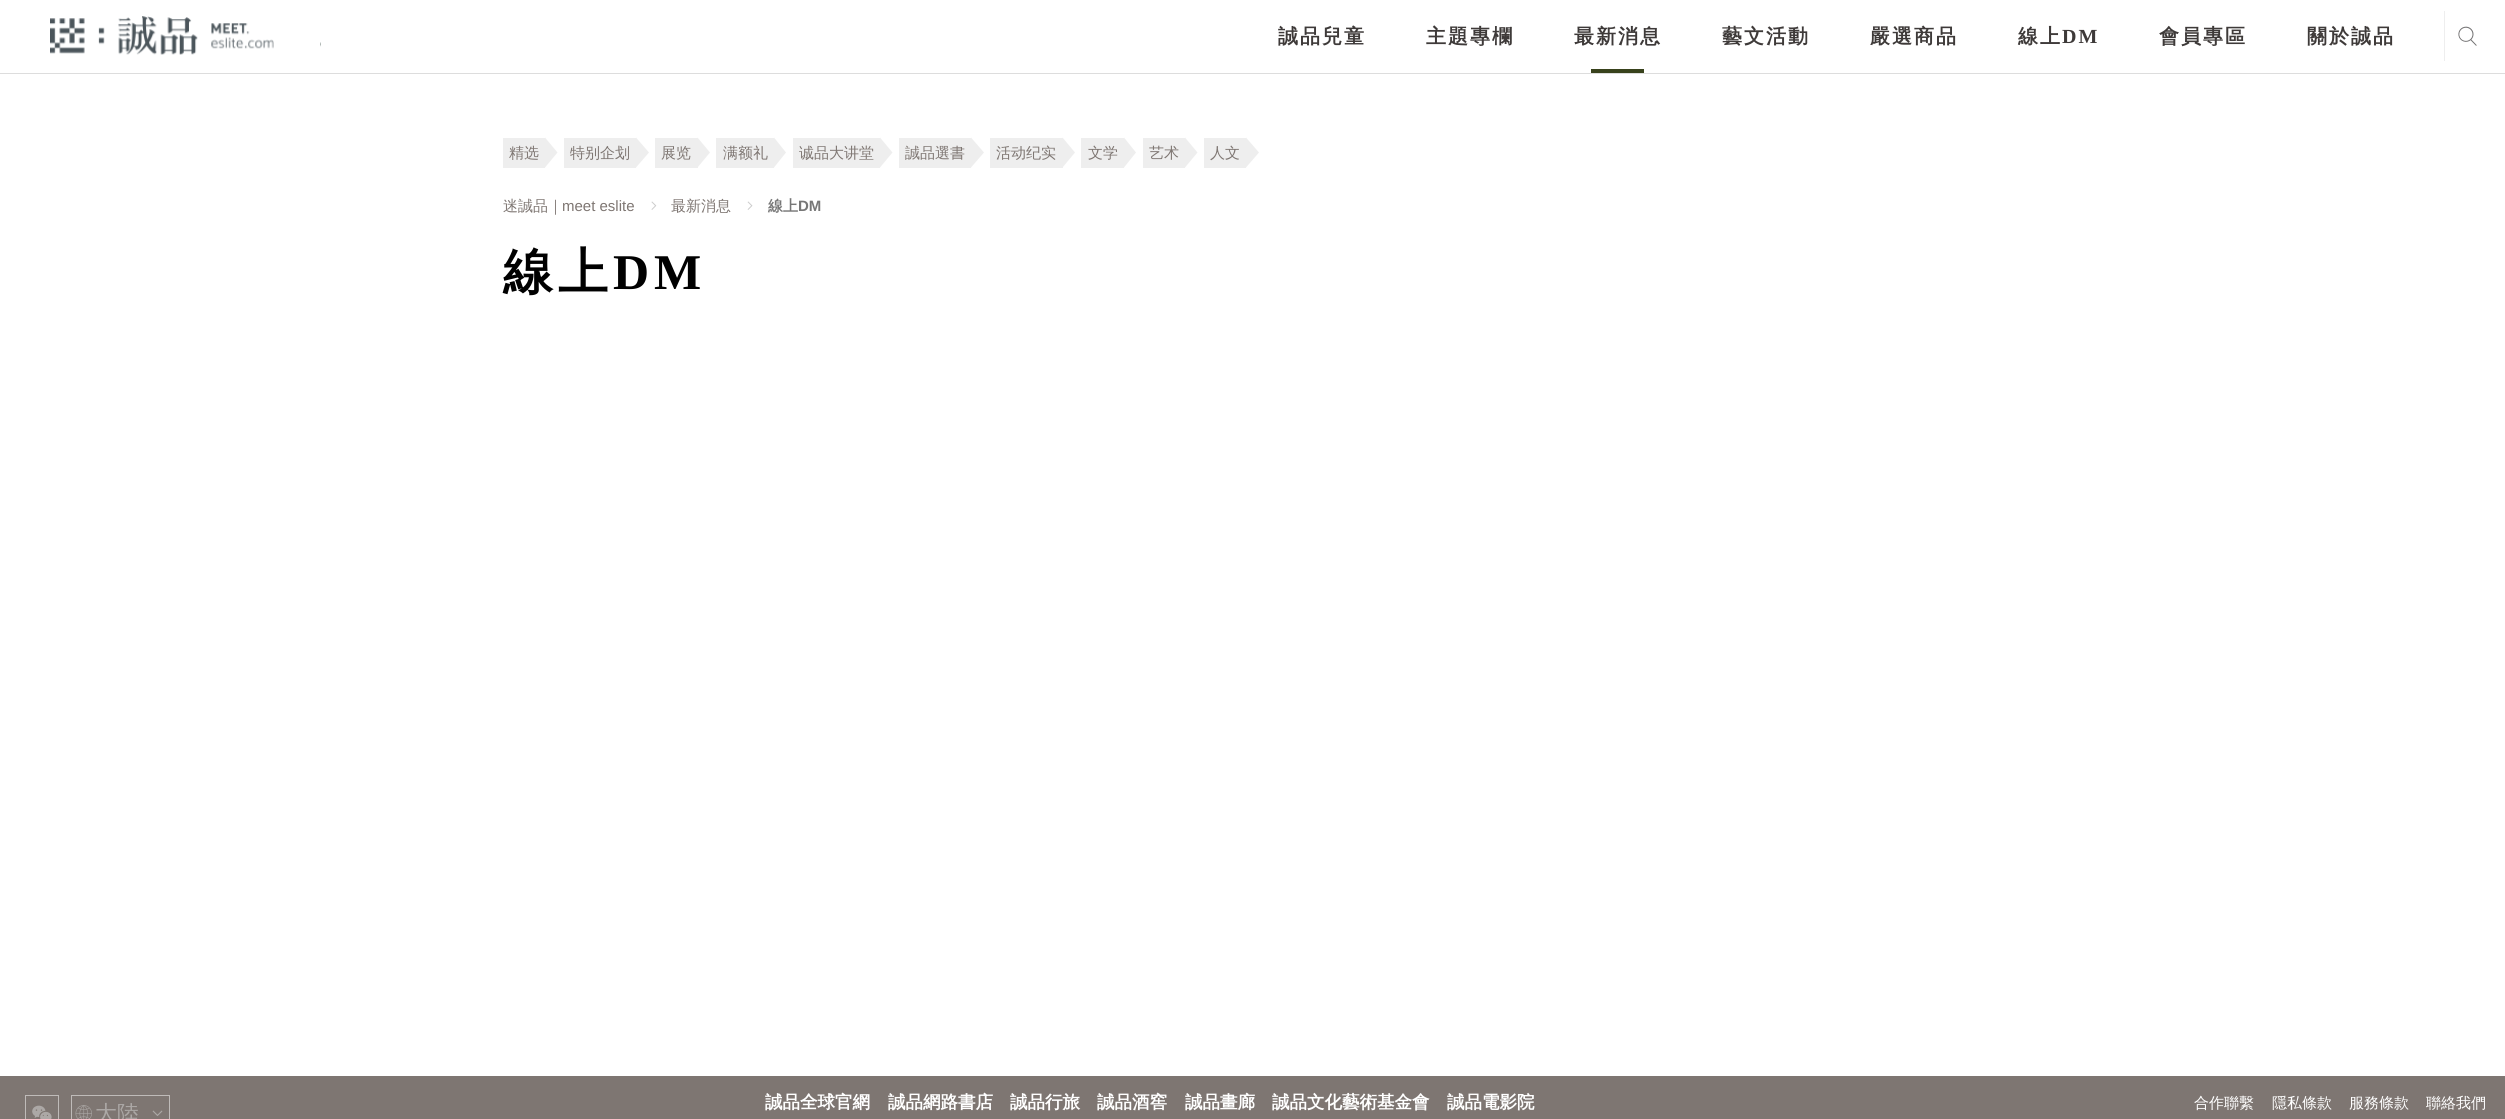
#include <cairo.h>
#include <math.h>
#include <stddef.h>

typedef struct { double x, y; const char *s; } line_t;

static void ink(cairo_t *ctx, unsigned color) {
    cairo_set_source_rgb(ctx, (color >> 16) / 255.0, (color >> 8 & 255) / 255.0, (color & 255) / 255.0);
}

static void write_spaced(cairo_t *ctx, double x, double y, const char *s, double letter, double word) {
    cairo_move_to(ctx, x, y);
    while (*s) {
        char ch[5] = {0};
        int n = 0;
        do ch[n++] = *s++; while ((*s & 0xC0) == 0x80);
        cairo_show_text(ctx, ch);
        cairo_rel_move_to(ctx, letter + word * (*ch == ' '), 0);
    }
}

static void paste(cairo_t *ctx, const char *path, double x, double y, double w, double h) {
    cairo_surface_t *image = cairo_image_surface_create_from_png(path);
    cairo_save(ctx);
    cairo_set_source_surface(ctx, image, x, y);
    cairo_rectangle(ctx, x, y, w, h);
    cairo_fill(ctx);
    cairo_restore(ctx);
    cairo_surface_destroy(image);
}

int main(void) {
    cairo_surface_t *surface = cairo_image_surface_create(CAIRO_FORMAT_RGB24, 2505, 1119);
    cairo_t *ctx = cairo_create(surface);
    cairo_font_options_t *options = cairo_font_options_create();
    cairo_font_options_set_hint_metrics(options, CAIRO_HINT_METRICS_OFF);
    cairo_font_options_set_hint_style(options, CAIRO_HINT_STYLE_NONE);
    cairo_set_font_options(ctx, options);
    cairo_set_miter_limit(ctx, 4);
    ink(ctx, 0xFFFFFF);
    cairo_paint(ctx);
    ink(ctx, 0xDDDDDD);
    cairo_rectangle(ctx, 0, 73, 2505, 1);
    cairo_fill(ctx);
    paste(ctx, "media/1.png", 50, 16, 224, 39);
    paste(ctx, "media/2.png", 320, 42, 1, 5);
    cairo_select_font_face(ctx, "WenQuanYi Zen Hei", CAIRO_FONT_SLANT_NORMAL, CAIRO_FONT_WEIGHT_BOLD);
    cairo_set_font_size(ctx, 20);
    ink(ctx, 0x3E3A39);
    {
        static const line_t items[] = {
            {1278, 43, "誠品兒童"},
            {1426, 43, "主題專欄"},
            {1574, 43, "最新消息"},
        };
        for (size_t i = 0; i < sizeof items / sizeof *items; i++) {
            write_spaced(ctx, items[i].x, items[i].y, items[i].s, 2, 0);
        }
    }
    ink(ctx, 0x38421C);
    cairo_rectangle(ctx, 1591, 69, 53, 4);
    cairo_fill(ctx);
    ink(ctx, 0x3E3A39);
    {
        static const line_t items[] = {
            {1722, 43, "藝文活動"},
            {1870, 43, "嚴選商品"},
            {2018, 43, "線上"},
        };
        for (size_t i = 0; i < sizeof items / sizeof *items; i++) {
            write_spaced(ctx, items[i].x, items[i].y, items[i].s, 2, 0);
        }
    }
    cairo_select_font_face(ctx, "Liberation Serif", CAIRO_FONT_SLANT_NORMAL, CAIRO_FONT_WEIGHT_BOLD);
    write_spaced(ctx, 2062, 43, "DM", 2, 0);
    cairo_select_font_face(ctx, "WenQuanYi Zen Hei", CAIRO_FONT_SLANT_NORMAL, CAIRO_FONT_WEIGHT_BOLD);
    write_spaced(ctx, 2159, 43, "會員專區", 2, 0);
    write_spaced(ctx, 2307, 43, "關於誠品", 2, 0);
    ink(ctx, 0xEEEEEE);
    cairo_rectangle(ctx, 2444, 11, 1, 50);
    cairo_fill(ctx);
    paste(ctx, "media/3.png", 2458, 26, 19, 20);
    cairo_rectangle(ctx, 503, 138, 42, 30);
    cairo_fill(ctx);
    cairo_select_font_face(ctx, "WenQuanYi Zen Hei Medium", CAIRO_FONT_SLANT_NORMAL, CAIRO_FONT_WEIGHT_NORMAL);
    cairo_set_font_size(ctx, 15);
    ink(ctx, 0x7E7672);
    cairo_move_to(ctx, 509, 158);
    cairo_show_text(ctx, "精选");
    ink(ctx, 0xEEEEEE);
    cairo_new_path(ctx);
    cairo_move_to(ctx, 545, 167.5);
    cairo_line_to(ctx, 545, 137.5);
    cairo_line_to(ctx, 557.5, 152.5);
    cairo_close_path(ctx);
    cairo_fill(ctx);
    cairo_rectangle(ctx, 564, 138, 72, 30);
    cairo_fill(ctx);
    ink(ctx, 0x7E7672);
    cairo_move_to(ctx, 570, 158);
    cairo_show_text(ctx, "特别企划");
    ink(ctx, 0xEEEEEE);
    cairo_new_path(ctx);
    cairo_move_to(ctx, 636, 167.5);
    cairo_line_to(ctx, 636, 137.5);
    cairo_line_to(ctx, 649, 152.5);
    cairo_close_path(ctx);
    cairo_fill(ctx);
    cairo_rectangle(ctx, 655, 138, 43, 30);
    cairo_fill(ctx);
    ink(ctx, 0x7E7672);
    cairo_move_to(ctx, 661, 158);
    cairo_show_text(ctx, "展览");
    ink(ctx, 0xEEEEEE);
    cairo_new_path(ctx);
    cairo_move_to(ctx, 697.5, 167.5);
    cairo_line_to(ctx, 697.5, 137.5);
    cairo_line_to(ctx, 710, 152.5);
    cairo_close_path(ctx);
    cairo_fill(ctx);
    cairo_rectangle(ctx, 716, 138, 58, 30);
    cairo_fill(ctx);
    ink(ctx, 0x7E7672);
    cairo_move_to(ctx, 723, 158);
    cairo_show_text(ctx, "满额礼");
    ink(ctx, 0xEEEEEE);
    cairo_new_path(ctx);
    cairo_move_to(ctx, 774, 167.5);
    cairo_line_to(ctx, 774, 137.5);
    cairo_line_to(ctx, 786, 152.5);
    cairo_close_path(ctx);
    cairo_fill(ctx);
    cairo_rectangle(ctx, 793, 138, 87, 30);
    cairo_fill(ctx);
    ink(ctx, 0x7E7672);
    cairo_move_to(ctx, 799, 158);
    cairo_show_text(ctx, "诚品大讲堂");
    ink(ctx, 0xEEEEEE);
    cairo_new_path(ctx);
    cairo_move_to(ctx, 880, 167.5);
    cairo_line_to(ctx, 880, 137.5);
    cairo_line_to(ctx, 892.5, 152.5);
    cairo_close_path(ctx);
    cairo_fill(ctx);
    cairo_rectangle(ctx, 899, 138, 72, 30);
    cairo_fill(ctx);
    ink(ctx, 0x7E7672);
    cairo_move_to(ctx, 905, 158);
    cairo_show_text(ctx, "誠品選書");
    ink(ctx, 0xEEEEEE);
    cairo_new_path(ctx);
    cairo_move_to(ctx, 971, 167.5);
    cairo_line_to(ctx, 971, 137.5);
    cairo_line_to(ctx, 984, 152.5);
    cairo_close_path(ctx);
    cairo_fill(ctx);
    cairo_rectangle(ctx, 990, 138, 73, 30);
    cairo_fill(ctx);
    ink(ctx, 0x7E7672);
    cairo_move_to(ctx, 996, 158);
    cairo_show_text(ctx, "活动纪实");
    ink(ctx, 0xEEEEEE);
    cairo_new_path(ctx);
    cairo_move_to(ctx, 1062.5, 167.5);
    cairo_line_to(ctx, 1062.5, 137.5);
    cairo_line_to(ctx, 1075, 152.5);
    cairo_close_path(ctx);
    cairo_fill(ctx);
    cairo_rectangle(ctx, 1081, 138, 43, 30);
    cairo_fill(ctx);
    ink(ctx, 0x7E7672);
    cairo_move_to(ctx, 1088, 158);
    cairo_show_text(ctx, "文学");
    ink(ctx, 0xEEEEEE);
    cairo_new_path(ctx);
    cairo_move_to(ctx, 1124, 167.5);
    cairo_line_to(ctx, 1124, 137.5);
    cairo_line_to(ctx, 1136, 152.5);
    cairo_close_path(ctx);
    cairo_fill(ctx);
    cairo_rectangle(ctx, 1143, 138, 42, 30);
    cairo_fill(ctx);
    ink(ctx, 0x7E7672);
    cairo_move_to(ctx, 1149, 158);
    cairo_show_text(ctx, "艺术");
    ink(ctx, 0xEEEEEE);
    cairo_new_path(ctx);
    cairo_move_to(ctx, 1185, 167.5);
    cairo_line_to(ctx, 1185, 137.5);
    cairo_line_to(ctx, 1197.5, 152.5);
    cairo_close_path(ctx);
    cairo_fill(ctx);
    cairo_rectangle(ctx, 1204, 138, 42, 30);
    cairo_fill(ctx);
    ink(ctx, 0x7E7672);
    cairo_move_to(ctx, 1210, 158);
    cairo_show_text(ctx, "人文");
    ink(ctx, 0xEEEEEE);
    cairo_new_path(ctx);
    cairo_move_to(ctx, 1246, 167.5);
    cairo_line_to(ctx, 1246, 137.5);
    cairo_line_to(ctx, 1259, 152.5);
    cairo_close_path(ctx);
    cairo_fill(ctx);
    ink(ctx, 0x7E7672);
    cairo_move_to(ctx, 503, 211);
    cairo_show_text(ctx, "迷誠品｜");
    cairo_select_font_face(ctx, "Liberation Sans", CAIRO_FONT_SLANT_NORMAL, CAIRO_FONT_WEIGHT_NORMAL);
    cairo_move_to(ctx, 562, 211);
    cairo_show_text(ctx, "meet eslite");
    paste(ctx, "media/4.png", 651, 201, 6, 9);
    cairo_select_font_face(ctx, "WenQuanYi Zen Hei Medium", CAIRO_FONT_SLANT_NORMAL, CAIRO_FONT_WEIGHT_NORMAL);
    cairo_move_to(ctx, 671, 211);
    cairo_show_text(ctx, "最新消息");
    paste(ctx, "media/5.png", 747, 201, 6, 9);
    cairo_select_font_face(ctx, "WenQuanYi Zen Hei", CAIRO_FONT_SLANT_NORMAL, CAIRO_FONT_WEIGHT_BOLD);
    ink(ctx, 0x777777);
    cairo_move_to(ctx, 768, 211);
    cairo_show_text(ctx, "線上");
    cairo_select_font_face(ctx, "Liberation Sans", CAIRO_FONT_SLANT_NORMAL, CAIRO_FONT_WEIGHT_BOLD);
    cairo_move_to(ctx, 798, 211);
    cairo_show_text(ctx, "DM");
    cairo_select_font_face(ctx, "WenQuanYi Zen Hei", CAIRO_FONT_SLANT_NORMAL, CAIRO_FONT_WEIGHT_BOLD);
    cairo_set_font_size(ctx, 50);
    ink(ctx, 0x000000);
    write_spaced(ctx, 503, 289, "線上", 5, 0);
    cairo_select_font_face(ctx, "Liberation Serif", CAIRO_FONT_SLANT_NORMAL, CAIRO_FONT_WEIGHT_BOLD);
    write_spaced(ctx, 613, 289, "DM", 5, 0);
    ink(ctx, 0x7E7672);
    cairo_rectangle(ctx, 0, 1076, 2505, 43);
    cairo_fill(ctx);
    cairo_rectangle(ctx, 25.5, 1095.5, 33, 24);
    ink(ctx, 0xBFBBB9);
    cairo_set_line_width(ctx, 1);
    cairo_stroke(ctx);
    paste(ctx, "media/6.png", 32, 1105, 20, 14);
    cairo_rectangle(ctx, 71.5, 1095.5, 98, 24);
    cairo_stroke(ctx);
    paste(ctx, "media/7.png", 75, 1105, 17, 14);
    cairo_select_font_face(ctx, "WenQuanYi Zen Hei Medium", CAIRO_FONT_SLANT_NORMAL, CAIRO_FONT_WEIGHT_NORMAL);
    cairo_set_font_size(ctx, 22);
    ink(ctx, 0xACA8A6);
    cairo_move_to(ctx, 95, 1121);
    cairo_show_text(ctx, "大陸");
    paste(ctx, "media/8.png", 152, 1110, 11, 6);
    cairo_select_font_face(ctx, "WenQuanYi Zen Hei", CAIRO_FONT_SLANT_NORMAL, CAIRO_FONT_WEIGHT_BOLD);
    cairo_set_font_size(ctx, 17.5);
    ink(ctx, 0xFFFFFF);
    {
        static const line_t items[] = {
            {765, 1108, "誠品全球官網"},
            {888, 1108, "誠品網路書店"},
            {1010, 1108, "誠品行旅"},
            {1097, 1108, "誠品酒窖"},
            {1185, 1108, "誠品畫廊"},
            {1272, 1108, "誠品文化藝術基金會"},
            {1447, 1108, "誠品電影院"},
        };
        for (size_t i = 0; i < sizeof items / sizeof *items; i++) {
            cairo_move_to(ctx, items[i].x, items[i].y);
            cairo_show_text(ctx, items[i].s);
        }
    }
    cairo_select_font_face(ctx, "WenQuanYi Zen Hei Medium", CAIRO_FONT_SLANT_NORMAL, CAIRO_FONT_WEIGHT_NORMAL);
    cairo_set_font_size(ctx, 15);
    {
        static const line_t items[] = {
            {2194, 1108, "合作聯繫"},
            {2272, 1108, "隱私條款"},
            {2349, 1108, "服務條款"},
            {2426, 1108, "聯絡我們"},
        };
        for (size_t i = 0; i < sizeof items / sizeof *items; i++) {
            cairo_move_to(ctx, items[i].x, items[i].y);
            cairo_show_text(ctx, items[i].s);
        }
    }
    cairo_surface_write_to_png(surface, "image.png");
    cairo_font_options_destroy(options);
    cairo_destroy(ctx);
    cairo_surface_destroy(surface);
    return 0;
}
